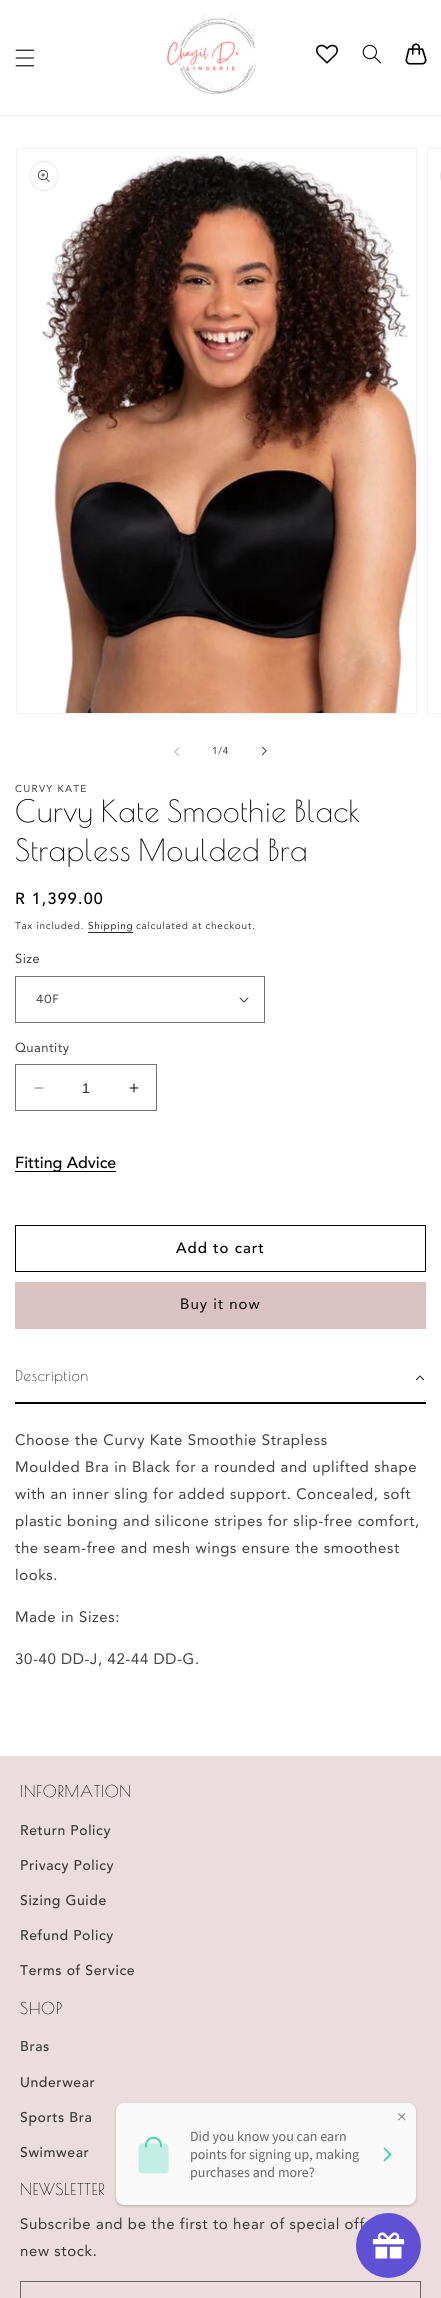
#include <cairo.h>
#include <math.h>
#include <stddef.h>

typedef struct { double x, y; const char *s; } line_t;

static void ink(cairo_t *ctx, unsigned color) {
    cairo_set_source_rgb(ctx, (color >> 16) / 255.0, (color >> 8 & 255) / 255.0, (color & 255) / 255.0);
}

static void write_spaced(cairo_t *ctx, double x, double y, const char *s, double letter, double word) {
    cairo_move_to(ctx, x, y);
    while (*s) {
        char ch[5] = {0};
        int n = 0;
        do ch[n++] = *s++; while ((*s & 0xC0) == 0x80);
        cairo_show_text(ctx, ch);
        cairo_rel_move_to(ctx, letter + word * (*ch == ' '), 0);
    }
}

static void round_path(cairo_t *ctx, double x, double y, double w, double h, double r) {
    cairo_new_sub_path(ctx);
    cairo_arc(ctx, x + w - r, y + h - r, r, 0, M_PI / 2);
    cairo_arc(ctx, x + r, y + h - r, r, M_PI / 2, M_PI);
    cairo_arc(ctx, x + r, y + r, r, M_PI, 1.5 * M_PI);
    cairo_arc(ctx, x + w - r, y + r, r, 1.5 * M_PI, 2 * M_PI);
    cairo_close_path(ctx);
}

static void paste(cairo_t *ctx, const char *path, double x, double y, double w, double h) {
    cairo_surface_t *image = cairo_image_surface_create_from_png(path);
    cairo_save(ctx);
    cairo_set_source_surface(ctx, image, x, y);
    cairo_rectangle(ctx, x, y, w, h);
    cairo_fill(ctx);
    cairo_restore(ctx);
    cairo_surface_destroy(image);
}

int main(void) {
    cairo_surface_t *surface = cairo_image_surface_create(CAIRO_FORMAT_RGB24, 441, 2298);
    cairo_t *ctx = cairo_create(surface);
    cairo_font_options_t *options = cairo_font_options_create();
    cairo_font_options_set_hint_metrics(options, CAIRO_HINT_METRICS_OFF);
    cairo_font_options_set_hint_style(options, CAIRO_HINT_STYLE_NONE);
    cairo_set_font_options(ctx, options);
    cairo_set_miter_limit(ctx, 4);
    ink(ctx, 0xFFFFFF);
    cairo_paint(ctx);
    ink(ctx, 0xEBEBEB);
    cairo_rectangle(ctx, 0, 115, 441, 1);
    cairo_fill(ctx);
    paste(ctx, "media/1.png", 15, 49, 20, 18);
    paste(ctx, "media/2.png", 166, 12, 90, 83);
    paste(ctx, "media/3.png", 316, 44, 22, 20);
    paste(ctx, "media/4.png", 362, 44, 19, 20);
    paste(ctx, "media/5.png", 405, 43, 22, 22);
    cairo_rectangle(ctx, 16.5, 148.5, 400, 565);
    ink(ctx, 0xF2F2F2);
    cairo_set_line_width(ctx, 1);
    cairo_stroke(ctx);
    paste(ctx, "media/6.png", 41, 153, 375, 560);
    cairo_arc(ctx, 44, 176, 14.5, 0, 2 * M_PI);
    ink(ctx, 0xE6E6E6);
    cairo_stroke(ctx);
    paste(ctx, "media/7.png", 38, 170, 12, 12);
    cairo_rectangle(ctx, 427.5, 148.5, 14, 565);
    ink(ctx, 0xF2F2F2);
    cairo_stroke(ctx);
    round_path(ctx, 440.5, 161.5, 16, 29, 14.5);
    ink(ctx, 0xE6E6E6);
    cairo_stroke(ctx);
    paste(ctx, "media/8.png", 174, 747, 6, 9);
    cairo_select_font_face(ctx, "Avenir", CAIRO_FONT_SLANT_NORMAL, CAIRO_FONT_WEIGHT_NORMAL);
    cairo_set_font_size(ctx, 10);
    ink(ctx, 0x404040);
    write_spaced(ctx, 212, 754, "1/4", 0.7, 0);
    paste(ctx, "media/9.png", 261, 746, 6, 10);
    write_spaced(ctx, 15, 792, "CURVY KATE", 1.25, 0);
    cairo_select_font_face(ctx, "Poiret One", CAIRO_FONT_SLANT_NORMAL, CAIRO_FONT_WEIGHT_NORMAL);
    cairo_set_font_size(ctx, 30);
    ink(ctx, 0x000000);
    write_spaced(ctx, 15, 822, "Curvy Kate Smoothie Black", 0.6, 0);
    write_spaced(ctx, 15, 861, "Strapless Moulded Bra", 0.6, 0);
    cairo_select_font_face(ctx, "Avenir Medium", CAIRO_FONT_SLANT_NORMAL, CAIRO_FONT_WEIGHT_NORMAL);
    cairo_set_font_size(ctx, 16);
    write_spaced(ctx, 15, 904, "R 1,399.00", 1.25, 0);
    cairo_select_font_face(ctx, "Avenir", CAIRO_FONT_SLANT_NORMAL, CAIRO_FONT_WEIGHT_NORMAL);
    cairo_set_font_size(ctx, 10);
    ink(ctx, 0x404040);
    write_spaced(ctx, 15, 929, "Tax included.", 0.7, 0);
    ink(ctx, 0x262626);
    write_spaced(ctx, 88, 929, "Shipping", 0.7, 0);
    cairo_rectangle(ctx, 88, 932, 45, 1);
    cairo_fill(ctx);
    ink(ctx, 0x404040);
    write_spaced(ctx, 136, 929, "calculated at checkout.", 0.7, 0);
    cairo_set_font_size(ctx, 13);
    write_spaced(ctx, 15, 963, "Size", 0.5, 0);
    paste(ctx, "media/10.png", 239, 997, 10, 6);
    cairo_rectangle(ctx, 15.5, 976.5, 249, 46);
    ink(ctx, 0x737373);
    cairo_stroke(ctx);
    cairo_select_font_face(ctx, "Figtree", CAIRO_FONT_SLANT_NORMAL, CAIRO_FONT_WEIGHT_NORMAL);
    cairo_set_font_size(ctx, 12);
    ink(ctx, 0x404040);
    write_spaced(ctx, 36, 1003, "40F", 0.5, 0);
    cairo_select_font_face(ctx, "Avenir", CAIRO_FONT_SLANT_NORMAL, CAIRO_FONT_WEIGHT_NORMAL);
    cairo_set_font_size(ctx, 13);
    write_spaced(ctx, 15, 1052, "Quantity", 0.5, 0);
    paste(ctx, "media/11.png", 34, 1087, 10, 2);
    paste(ctx, "media/12.png", 129, 1083, 10, 10);
    cairo_rectangle(ctx, 15.5, 1064.5, 141, 46);
    ink(ctx, 0x737373);
    cairo_stroke(ctx);
    cairo_select_font_face(ctx, "Liberation Sans", CAIRO_FONT_SLANT_NORMAL, CAIRO_FONT_WEIGHT_NORMAL);
    cairo_set_font_size(ctx, 14);
    ink(ctx, 0x262626);
    cairo_move_to(ctx, 82, 1093);
    cairo_show_text(ctx, "1");
    ink(ctx, 0x000000);
    cairo_rectangle(ctx, 15, 1171, 101, 1);
    cairo_fill(ctx);
    cairo_select_font_face(ctx, "Avenir Medium", CAIRO_FONT_SLANT_NORMAL, CAIRO_FONT_WEIGHT_NORMAL);
    cairo_set_font_size(ctx, 16);
    cairo_move_to(ctx, 15, 1168);
    cairo_show_text(ctx, "Fitting Advice");
    cairo_rectangle(ctx, 15.5, 1225.5, 410, 46);
    cairo_stroke(ctx);
    cairo_set_font_size(ctx, 15);
    write_spaced(ctx, 176, 1253, "Add to cart", 1, 0);
    ink(ctx, 0xDBC2C2);
    cairo_rectangle(ctx, 15, 1282, 411, 47);
    cairo_fill(ctx);
    cairo_select_font_face(ctx, "Avenir", CAIRO_FONT_SLANT_NORMAL, CAIRO_FONT_WEIGHT_NORMAL);
    ink(ctx, 0x000000);
    write_spaced(ctx, 180, 1309, "Buy it now", 1, 0);
    cairo_rectangle(ctx, 15, 1402, 411, 2);
    cairo_fill(ctx);
    cairo_select_font_face(ctx, "Poiret One", CAIRO_FONT_SLANT_NORMAL, CAIRO_FONT_WEIGHT_NORMAL);
    write_spaced(ctx, 15, 1381, "Description", 0.6, 0);
    cairo_new_path(ctx);
    cairo_move_to(ctx, 416.5, 1380.5);
    cairo_line_to(ctx, 416, 1379.5);
    cairo_line_to(ctx, 420, 1375.5);
    cairo_line_to(ctx, 420.5, 1376);
    cairo_close_path(ctx);
    cairo_fill(ctx);
    cairo_new_path(ctx);
    cairo_move_to(ctx, 423.5, 1380.5);
    cairo_line_to(ctx, 419.5, 1376);
    cairo_line_to(ctx, 420, 1375.5);
    cairo_line_to(ctx, 424, 1379.5);
    cairo_close_path(ctx);
    cairo_fill(ctx);
    cairo_select_font_face(ctx, "Avenir", CAIRO_FONT_SLANT_NORMAL, CAIRO_FONT_WEIGHT_NORMAL);
    ink(ctx, 0x404040);
    {
        static const line_t items[] = {
            {15, 1445, "Choose the Curvy Kate Smoothie Strapless"},
            {15, 1472, "Moulded Bra in Black for a rounded and uplifted shape"},
            {15, 1499, "with an inner sling for added support. Concealed, soft"},
            {15, 1526, "plastic boning and silicone stripes for slip-free comfort,"},
            {15, 1553, "the seam-free and mesh wings ensure the smoothest"},
            {15, 1580, "looks."},
            {15, 1622, "Made in Sizes:"},
            {15, 1664, "30-40 DD-J, 42-44 DD-G."},
        };
        for (size_t i = 0; i < sizeof items / sizeof *items; i++) {
            write_spaced(ctx, items[i].x, items[i].y, items[i].s, 0.6, 0);
        }
    }
    ink(ctx, 0xEBDDDD);
    cairo_rectangle(ctx, 0, 1756, 441, 542);
    cairo_fill(ctx);
    cairo_select_font_face(ctx, "Poiret One", CAIRO_FONT_SLANT_NORMAL, CAIRO_FONT_WEIGHT_NORMAL);
    cairo_set_font_size(ctx, 16);
    ink(ctx, 0x000000);
    write_spaced(ctx, 20, 1797, "INFORMATION", 0.6, 0);
    cairo_select_font_face(ctx, "Avenir Medium", CAIRO_FONT_SLANT_NORMAL, CAIRO_FONT_WEIGHT_NORMAL);
    cairo_set_font_size(ctx, 14);
    ink(ctx, 0x3B3737);
    {
        static const line_t items[] = {
            {20, 1835, "Return Policy"},
            {20, 1870, "Privacy Policy"},
            {20, 1905, "Sizing Guide"},
            {20, 1940, "Refund Policy"},
            {20, 1975, "Terms of Service"},
        };
        for (size_t i = 0; i < sizeof items / sizeof *items; i++) {
            write_spaced(ctx, items[i].x, items[i].y, items[i].s, 0.6, 0);
        }
    }
    cairo_select_font_face(ctx, "Poiret One", CAIRO_FONT_SLANT_NORMAL, CAIRO_FONT_WEIGHT_NORMAL);
    cairo_set_font_size(ctx, 16);
    ink(ctx, 0x000000);
    write_spaced(ctx, 20, 2014, "SHOP", 0.6, 0);
    cairo_select_font_face(ctx, "Avenir Medium", CAIRO_FONT_SLANT_NORMAL, CAIRO_FONT_WEIGHT_NORMAL);
    cairo_set_font_size(ctx, 14);
    ink(ctx, 0x3B3737);
    {
        static const line_t items[] = {
            {20, 2051, "Bras"},
            {20, 2087, "Underwear"},
            {20, 2122, "Sports Bra"},
            {20, 2157, "Swimwear"},
        };
        for (size_t i = 0; i < sizeof items / sizeof *items; i++) {
            write_spaced(ctx, items[i].x, items[i].y, items[i].s, 0.6, 0);
        }
    }
    cairo_select_font_face(ctx, "Poiret One", CAIRO_FONT_SLANT_NORMAL, CAIRO_FONT_WEIGHT_NORMAL);
    cairo_set_font_size(ctx, 16);
    ink(ctx, 0x000000);
    write_spaced(ctx, 20, 2195, "NEWSLETTER", 0.6, 0);
    cairo_select_font_face(ctx, "Avenir", CAIRO_FONT_SLANT_NORMAL, CAIRO_FONT_WEIGHT_NORMAL);
    cairo_set_font_size(ctx, 15);
    ink(ctx, 0x3B3737);
    write_spaced(ctx, 20, 2229, "Subscribe and be the first to hear of special off", 0.6, 0);
    write_spaced(ctx, 20, 2256, "new stock.", 0.6, 0);
    cairo_rectangle(ctx, 20.5, 2281.5, 400, 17);
    ink(ctx, 0x6A6363);
    cairo_stroke(ctx);
    paste(ctx, "media/13.png", 114, 2102, 304, 106);
    paste(ctx, "media/14.png", 356, 2213, 65, 65);
    cairo_surface_write_to_png(surface, "image.png");
    cairo_font_options_destroy(options);
    cairo_destroy(ctx);
    cairo_surface_destroy(surface);
    return 0;
}
